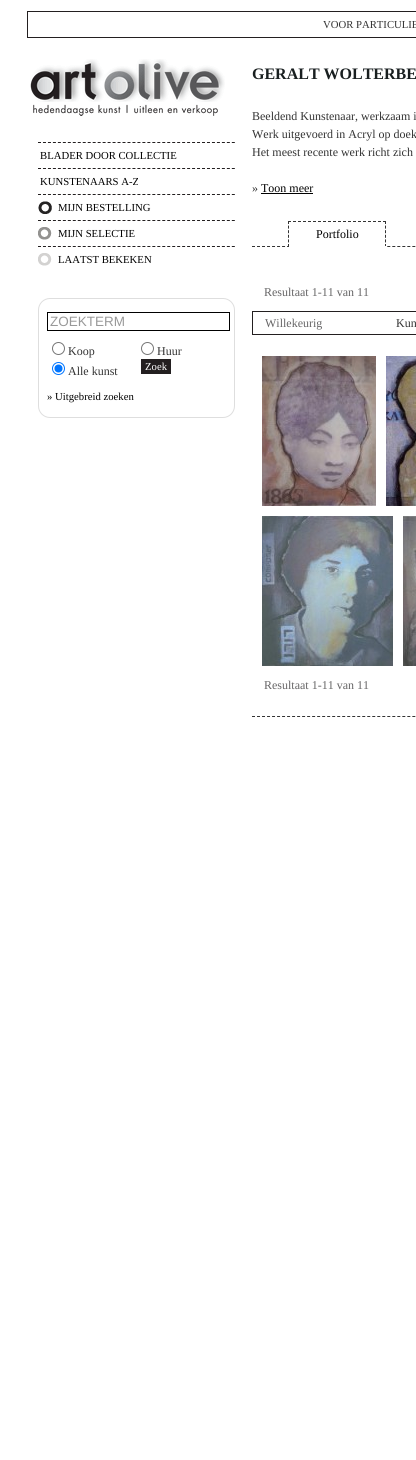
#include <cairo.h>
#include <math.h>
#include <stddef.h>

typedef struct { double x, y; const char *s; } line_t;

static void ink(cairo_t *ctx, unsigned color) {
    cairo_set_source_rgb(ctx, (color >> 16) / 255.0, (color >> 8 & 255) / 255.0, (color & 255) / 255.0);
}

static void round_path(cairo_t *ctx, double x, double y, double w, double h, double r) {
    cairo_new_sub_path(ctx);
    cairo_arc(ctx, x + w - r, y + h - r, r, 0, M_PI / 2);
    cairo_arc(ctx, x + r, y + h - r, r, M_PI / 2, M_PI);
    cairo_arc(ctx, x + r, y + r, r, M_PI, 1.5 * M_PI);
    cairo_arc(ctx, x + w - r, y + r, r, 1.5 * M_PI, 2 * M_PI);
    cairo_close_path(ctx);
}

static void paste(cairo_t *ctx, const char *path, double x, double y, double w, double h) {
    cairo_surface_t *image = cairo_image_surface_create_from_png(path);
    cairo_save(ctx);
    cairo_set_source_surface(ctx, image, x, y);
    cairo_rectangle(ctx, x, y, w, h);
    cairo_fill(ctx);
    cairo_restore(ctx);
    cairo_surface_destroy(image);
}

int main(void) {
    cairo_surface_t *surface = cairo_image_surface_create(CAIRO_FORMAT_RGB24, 416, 1460);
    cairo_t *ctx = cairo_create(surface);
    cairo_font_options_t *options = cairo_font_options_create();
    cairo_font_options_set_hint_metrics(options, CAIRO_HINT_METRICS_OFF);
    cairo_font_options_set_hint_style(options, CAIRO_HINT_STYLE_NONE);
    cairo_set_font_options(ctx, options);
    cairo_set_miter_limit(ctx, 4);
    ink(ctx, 0xFFFFFF);
    cairo_paint(ctx);
    cairo_rectangle(ctx, 27.5, 11.5, 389, 26);
    ink(ctx, 0x231F20);
    cairo_set_line_width(ctx, 1);
    cairo_stroke(ctx);
    cairo_select_font_face(ctx, "Liberation Serif", CAIRO_FONT_SLANT_NORMAL, CAIRO_FONT_WEIGHT_NORMAL);
    cairo_set_font_size(ctx, 10.7);
    ink(ctx, 0x333333);
    cairo_move_to(ctx, 323, 28);
    cairo_show_text(ctx, "VOOR PARTICULIE");
    paste(ctx, "media/1.png", 30, 59, 195, 57);
    cairo_new_path(ctx);
    cairo_move_to(ctx, 38, 142.5);
    cairo_line_to(ctx, 235, 142.5);
    ink(ctx, 0x231F20);
    cairo_set_dash(ctx, (double[]){3, 1.97}, 2, 0);
    cairo_stroke(ctx);
    ink(ctx, 0x000000);
    cairo_move_to(ctx, 40, 159);
    cairo_show_text(ctx, "BLADER DOOR COLLECTIE");
    cairo_new_path(ctx);
    cairo_move_to(ctx, 38, 168.5);
    cairo_line_to(ctx, 235, 168.5);
    ink(ctx, 0x231F20);
    cairo_stroke(ctx);
    ink(ctx, 0x000000);
    cairo_move_to(ctx, 40, 185);
    cairo_show_text(ctx, "KUNSTENAARS A-Z");
    paste(ctx, "media/2.png", 38, 201, 14, 13);
    cairo_new_path(ctx);
    cairo_move_to(ctx, 38, 194.5);
    cairo_line_to(ctx, 235, 194.5);
    ink(ctx, 0x231F20);
    cairo_stroke(ctx);
    ink(ctx, 0x000000);
    cairo_move_to(ctx, 58, 211);
    cairo_show_text(ctx, "MIJN BESTELLING");
    paste(ctx, "media/3.png", 38, 227, 14, 13);
    cairo_new_path(ctx);
    cairo_move_to(ctx, 38, 220.5);
    cairo_line_to(ctx, 235, 220.5);
    ink(ctx, 0x231F20);
    cairo_stroke(ctx);
    ink(ctx, 0x000000);
    cairo_move_to(ctx, 58, 237);
    cairo_show_text(ctx, "MIJN SELECTIE");
    paste(ctx, "media/4.png", 38, 253, 14, 13);
    cairo_new_path(ctx);
    cairo_move_to(ctx, 38, 246.5);
    cairo_line_to(ctx, 235, 246.5);
    ink(ctx, 0x231F20);
    cairo_stroke(ctx);
    ink(ctx, 0x000000);
    cairo_move_to(ctx, 58, 263);
    cairo_show_text(ctx, "LAATST BEKEKEN");
    round_path(ctx, 38.5, 298.5, 196, 119, 11.5);
    ink(ctx, 0xDEDEDE);
    cairo_set_dash(ctx, NULL, 0, 0);
    cairo_stroke(ctx);
    cairo_rectangle(ctx, 47.5, 312.5, 182, 18);
    ink(ctx, 0x000000);
    cairo_stroke(ctx);
    cairo_select_font_face(ctx, "Liberation Sans", CAIRO_FONT_SLANT_NORMAL, CAIRO_FONT_WEIGHT_NORMAL);
    cairo_set_font_size(ctx, 13.5);
    ink(ctx, 0x999999);
    cairo_move_to(ctx, 50, 326);
    cairo_show_text(ctx, "ZOEKTERM");
    cairo_new_path(ctx);
    cairo_arc(ctx, 58.5, 348.5, 6, 0, 2 * M_PI);
    ink(ctx, 0x767676);
    cairo_stroke(ctx);
    cairo_select_font_face(ctx, "Liberation Serif", CAIRO_FONT_SLANT_NORMAL, CAIRO_FONT_WEIGHT_NORMAL);
    cairo_set_font_size(ctx, 12);
    ink(ctx, 0x333333);
    cairo_move_to(ctx, 68, 355);
    cairo_show_text(ctx, "Koop");
    cairo_new_path(ctx);
    cairo_arc(ctx, 147.5, 348.5, 6, 0, 2 * M_PI);
    ink(ctx, 0x767676);
    cairo_stroke(ctx);
    ink(ctx, 0x333333);
    cairo_move_to(ctx, 157, 355);
    cairo_show_text(ctx, "Huur");
    cairo_new_path(ctx);
    cairo_arc(ctx, 58.5, 368.5, 6, 0, 2 * M_PI);
    ink(ctx, 0x0075FF);
    cairo_stroke(ctx);
    cairo_arc(ctx, 58.5, 368.5, 4, 0, 2 * M_PI);
    cairo_fill(ctx);
    ink(ctx, 0x333333);
    cairo_move_to(ctx, 68, 375);
    cairo_show_text(ctx, "Alle kunst");
    ink(ctx, 0x231F20);
    cairo_rectangle(ctx, 141, 359, 30, 15);
    cairo_fill(ctx);
    cairo_set_font_size(ctx, 10.7);
    ink(ctx, 0xFFFFFF);
    cairo_move_to(ctx, 145, 370);
    cairo_show_text(ctx, "Zoek");
    ink(ctx, 0x000000);
    cairo_move_to(ctx, 47, 400);
    cairo_show_text(ctx, "» Uitgebreid zoeken");
    cairo_select_font_face(ctx, "Liberation Serif", CAIRO_FONT_SLANT_NORMAL, CAIRO_FONT_WEIGHT_BOLD);
    cairo_set_font_size(ctx, 16);
    ink(ctx, 0x191F20);
    cairo_move_to(ctx, 252, 79);
    cairo_show_text(ctx, "GERALT WOLTERBE");
    cairo_select_font_face(ctx, "Liberation Serif", CAIRO_FONT_SLANT_NORMAL, CAIRO_FONT_WEIGHT_NORMAL);
    cairo_set_font_size(ctx, 12);
    ink(ctx, 0x333333);
    {
        static const line_t items[] = {
            {252, 120, "Beeldend Kunstenaar, werkzaam i"},
            {252, 138, "Werk uitgevoerd in Acryl op doek"},
            {252, 156, "Het meest recente werk richt zich"},
            {252, 192, "»"},
        };
        for (size_t i = 0; i < sizeof items / sizeof *items; i++) {
            cairo_move_to(ctx, items[i].x, items[i].y);
            cairo_show_text(ctx, items[i].s);
        }
    }
    ink(ctx, 0x000000);
    cairo_move_to(ctx, 261, 192);
    cairo_show_text(ctx, "Toon meer");
    cairo_rectangle(ctx, 261, 193, 52, 1);
    cairo_fill(ctx);
    cairo_new_path(ctx);
    cairo_move_to(ctx, 252, 716.5);
    cairo_line_to(ctx, 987, 716.5);
    ink(ctx, 0x333333);
    cairo_set_dash(ctx, (double[]){3, 2.01}, 2, 0);
    cairo_stroke(ctx);
    cairo_new_path(ctx);
    cairo_move_to(ctx, 252, 246.5);
    cairo_line_to(ctx, 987, 246.5);
    cairo_stroke(ctx);
    cairo_new_path(ctx);
    cairo_move_to(ctx, 288, 221.5);
    cairo_line_to(ctx, 386, 221.5);
    cairo_set_dash(ctx, (double[]){3, 2}, 2, 0);
    cairo_stroke(ctx);
    cairo_new_path(ctx);
    cairo_move_to(ctx, 385.5, 221);
    cairo_line_to(ctx, 385.5, 247);
    cairo_set_dash(ctx, (double[]){3, 1.6}, 2, 0);
    cairo_stroke(ctx);
    ink(ctx, 0xFFFFFF);
    cairo_rectangle(ctx, 288, 246, 98, 1);
    cairo_fill(ctx);
    cairo_new_path(ctx);
    cairo_move_to(ctx, 288.5, 221);
    cairo_line_to(ctx, 288.5, 247);
    ink(ctx, 0x333333);
    cairo_stroke(ctx);
    ink(ctx, 0x000000);
    cairo_move_to(ctx, 316, 238);
    cairo_show_text(ctx, "Portfolio");
    ink(ctx, 0x666566);
    cairo_move_to(ctx, 264, 296);
    cairo_show_text(ctx, "Resultaat 1-11 van 11");
    cairo_rectangle(ctx, 252.5, 311.5, 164, 23);
    ink(ctx, 0x231F20);
    cairo_set_dash(ctx, NULL, 0, 0);
    cairo_stroke(ctx);
    ink(ctx, 0x666566);
    cairo_move_to(ctx, 265, 327);
    cairo_show_text(ctx, "Willekeurig");
    ink(ctx, 0x333333);
    cairo_move_to(ctx, 396, 327);
    cairo_show_text(ctx, "Kun");
    paste(ctx, "media/5.png", 262, 356, 114, 150);
    paste(ctx, "media/6.png", 386, 356, 30, 150);
    paste(ctx, "media/7.png", 262, 516, 131, 150);
    paste(ctx, "media/8.png", 403, 516, 13, 150);
    ink(ctx, 0x666566);
    cairo_move_to(ctx, 264, 689);
    cairo_show_text(ctx, "Resultaat 1-11 van 11");
    cairo_surface_write_to_png(surface, "image.png");
    cairo_font_options_destroy(options);
    cairo_destroy(ctx);
    cairo_surface_destroy(surface);
    return 0;
}
